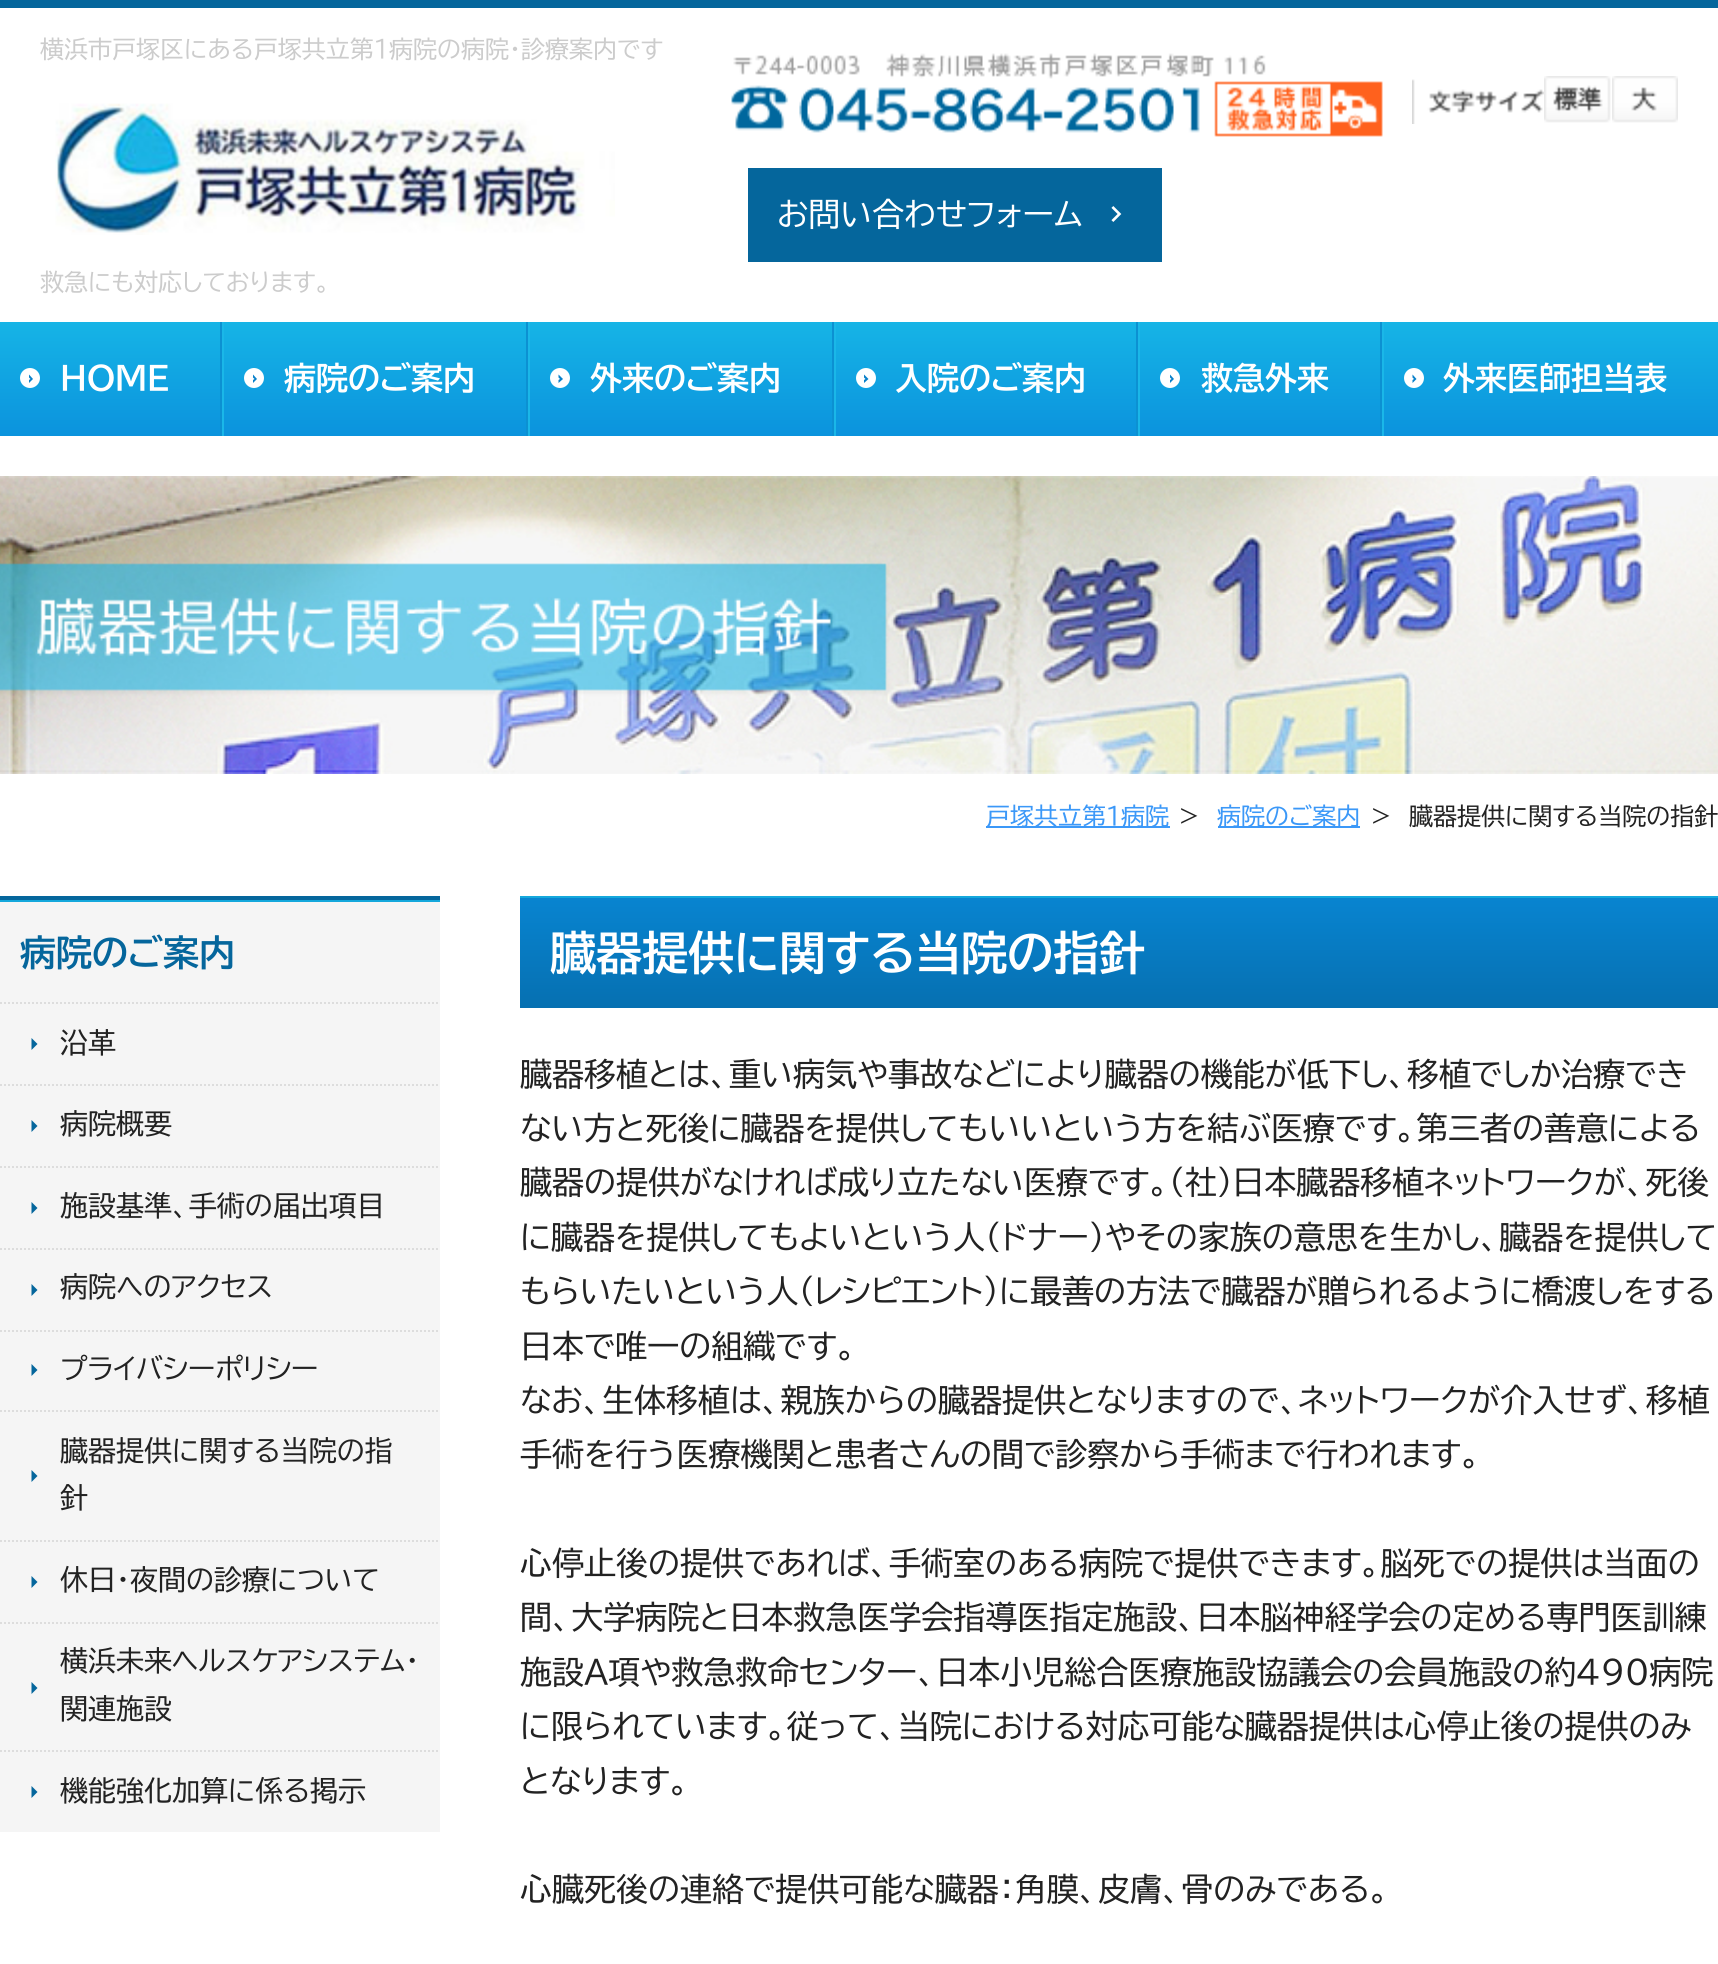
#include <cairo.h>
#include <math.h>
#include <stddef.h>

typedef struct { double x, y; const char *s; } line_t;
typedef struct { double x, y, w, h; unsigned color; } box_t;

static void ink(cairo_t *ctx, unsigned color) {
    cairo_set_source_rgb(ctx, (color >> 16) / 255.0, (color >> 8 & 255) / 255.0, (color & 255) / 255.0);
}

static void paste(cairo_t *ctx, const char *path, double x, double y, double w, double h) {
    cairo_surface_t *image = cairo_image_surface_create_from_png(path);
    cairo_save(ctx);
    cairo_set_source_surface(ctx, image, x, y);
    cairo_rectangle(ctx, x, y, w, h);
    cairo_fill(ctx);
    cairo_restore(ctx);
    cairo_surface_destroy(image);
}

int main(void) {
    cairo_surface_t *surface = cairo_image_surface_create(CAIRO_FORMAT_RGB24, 1718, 1964);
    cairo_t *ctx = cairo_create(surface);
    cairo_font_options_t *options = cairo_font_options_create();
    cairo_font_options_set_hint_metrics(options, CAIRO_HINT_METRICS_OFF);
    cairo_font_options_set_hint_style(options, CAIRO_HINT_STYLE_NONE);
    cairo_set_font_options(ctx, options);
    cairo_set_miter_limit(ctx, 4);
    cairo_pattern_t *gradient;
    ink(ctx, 0xFFFFFF);
    cairo_paint(ctx);
    ink(ctx, 0x05669C);
    cairo_rectangle(ctx, 0, 0, 1718, 8);
    cairo_fill(ctx);
    cairo_select_font_face(ctx, "BIZ UDPGothic", CAIRO_FONT_SLANT_NORMAL, CAIRO_FONT_WEIGHT_NORMAL);
    cairo_set_font_size(ctx, 24);
    ink(ctx, 0xCCCCCC);
    cairo_move_to(ctx, 40, 58);
    cairo_show_text(ctx, "横浜市戸塚区にある戸塚共立第1病院の病院・診療案内です");
    paste(ctx, "media/1.png", 55, 103, 560, 132);
    cairo_move_to(ctx, 40, 291);
    cairo_show_text(ctx, "救急にも対応しております。");
    paste(ctx, "media/2.png", 731, 53, 652, 84);
    paste(ctx, "media/3.png", 1412, 79, 132, 45);
    paste(ctx, "media/4.png", 1544, 76, 67, 47);
    paste(ctx, "media/5.png", 1612, 76, 66, 47);
    ink(ctx, 0x05669C);
    cairo_rectangle(ctx, 748, 168, 414, 94);
    cairo_fill(ctx);
    cairo_set_font_size(ctx, 32);
    ink(ctx, 0xFFFFFF);
    cairo_move_to(ctx, 777, 226);
    cairo_show_text(ctx, "お問い合わせフォーム");
    paste(ctx, "media/6.png", 1111, 206, 11, 16);
    gradient = cairo_pattern_create_linear(110, 322, 110, 436);
    cairo_pattern_add_color_stop_rgba(gradient, 0, 0.086, 0.706, 0.902, 1);
    cairo_pattern_add_color_stop_rgba(gradient, 1, 0.043, 0.576, 0.867, 1);
    cairo_set_source(ctx, gradient);
    cairo_pattern_destroy(gradient);
    cairo_rectangle(ctx, 0, 322, 220, 114);
    cairo_fill(ctx);
    ink(ctx, 0x0C91D2);
    cairo_rectangle(ctx, 220, 322, 2, 114);
    cairo_fill(ctx);
    ink(ctx, 0xFFFFFF);
    cairo_arc(ctx, 30, 378, 10, 0, 2 * M_PI);
    cairo_fill(ctx);
    cairo_select_font_face(ctx, "BIZ UDPGothic", CAIRO_FONT_SLANT_NORMAL, CAIRO_FONT_WEIGHT_BOLD);
    cairo_move_to(ctx, 60, 390);
    cairo_show_text(ctx, "HOME");
    ink(ctx, 0x0880CA);
    cairo_new_path(ctx);
    cairo_move_to(ctx, 29, 374.5);
    cairo_line_to(ctx, 33, 379);
    cairo_line_to(ctx, 30.5, 379);
    cairo_line_to(ctx, 29, 377.5);
    cairo_close_path(ctx);
    cairo_move_to(ctx, 33, 379);
    cairo_line_to(ctx, 29, 383);
    cairo_line_to(ctx, 29, 380);
    cairo_line_to(ctx, 30.5, 379);
    cairo_close_path(ctx);
    cairo_fill(ctx);
    gradient = cairo_pattern_create_linear(375, 322, 375, 436);
    cairo_pattern_add_color_stop_rgba(gradient, 0, 0.086, 0.706, 0.902, 1);
    cairo_pattern_add_color_stop_rgba(gradient, 1, 0.043, 0.576, 0.867, 1);
    cairo_set_source(ctx, gradient);
    cairo_pattern_destroy(gradient);
    cairo_rectangle(ctx, 224, 322, 302, 114);
    cairo_fill(ctx);
    ink(ctx, 0x0C91D2);
    cairo_rectangle(ctx, 526, 322, 2, 114);
    cairo_fill(ctx);
    ink(ctx, 0x1AB7E8);
    cairo_rectangle(ctx, 222, 322, 2, 114);
    cairo_fill(ctx);
    ink(ctx, 0xFFFFFF);
    cairo_arc(ctx, 254, 378, 10, 0, 2 * M_PI);
    cairo_fill(ctx);
    cairo_move_to(ctx, 284, 390);
    cairo_show_text(ctx, "病院のご案内");
    ink(ctx, 0x0880CA);
    cairo_new_path(ctx);
    cairo_move_to(ctx, 253, 374.5);
    cairo_line_to(ctx, 257, 379);
    cairo_line_to(ctx, 254.5, 379);
    cairo_line_to(ctx, 253, 377.5);
    cairo_close_path(ctx);
    cairo_move_to(ctx, 257, 379);
    cairo_line_to(ctx, 253, 383);
    cairo_line_to(ctx, 253, 380);
    cairo_line_to(ctx, 254.5, 379);
    cairo_close_path(ctx);
    cairo_fill(ctx);
    gradient = cairo_pattern_create_linear(681, 322, 681, 436);
    cairo_pattern_add_color_stop_rgba(gradient, 0, 0.086, 0.706, 0.902, 1);
    cairo_pattern_add_color_stop_rgba(gradient, 1, 0.043, 0.576, 0.867, 1);
    cairo_set_source(ctx, gradient);
    cairo_pattern_destroy(gradient);
    cairo_rectangle(ctx, 530, 322, 302, 114);
    cairo_fill(ctx);
    ink(ctx, 0x0C91D2);
    cairo_rectangle(ctx, 832, 322, 2, 114);
    cairo_fill(ctx);
    ink(ctx, 0x1AB7E8);
    cairo_rectangle(ctx, 528, 322, 2, 114);
    cairo_fill(ctx);
    ink(ctx, 0xFFFFFF);
    cairo_arc(ctx, 560, 378, 10, 0, 2 * M_PI);
    cairo_fill(ctx);
    cairo_move_to(ctx, 590, 390);
    cairo_show_text(ctx, "外来のご案内");
    ink(ctx, 0x0880CA);
    cairo_new_path(ctx);
    cairo_move_to(ctx, 558.5, 374.5);
    cairo_line_to(ctx, 563, 379);
    cairo_line_to(ctx, 560, 379);
    cairo_line_to(ctx, 558.5, 377.5);
    cairo_close_path(ctx);
    cairo_move_to(ctx, 563, 379);
    cairo_line_to(ctx, 558.5, 383);
    cairo_line_to(ctx, 558.5, 380);
    cairo_line_to(ctx, 560, 379);
    cairo_close_path(ctx);
    cairo_fill(ctx);
    gradient = cairo_pattern_create_linear(986, 322, 986, 436);
    cairo_pattern_add_color_stop_rgba(gradient, 0, 0.086, 0.706, 0.902, 1);
    cairo_pattern_add_color_stop_rgba(gradient, 1, 0.043, 0.576, 0.867, 1);
    cairo_set_source(ctx, gradient);
    cairo_pattern_destroy(gradient);
    cairo_rectangle(ctx, 836, 322, 300, 114);
    cairo_fill(ctx);
    ink(ctx, 0x0C91D2);
    cairo_rectangle(ctx, 1136, 322, 2, 114);
    cairo_fill(ctx);
    ink(ctx, 0x1AB7E8);
    cairo_rectangle(ctx, 834, 322, 2, 114);
    cairo_fill(ctx);
    ink(ctx, 0xFFFFFF);
    cairo_arc(ctx, 866, 378, 10, 0, 2 * M_PI);
    cairo_fill(ctx);
    cairo_move_to(ctx, 895, 390);
    cairo_show_text(ctx, "入院のご案内");
    ink(ctx, 0x0880CA);
    cairo_new_path(ctx);
    cairo_move_to(ctx, 864, 374.5);
    cairo_line_to(ctx, 868.5, 379);
    cairo_line_to(ctx, 865.5, 379);
    cairo_line_to(ctx, 864, 377.5);
    cairo_close_path(ctx);
    cairo_move_to(ctx, 868.5, 379);
    cairo_line_to(ctx, 864, 383);
    cairo_line_to(ctx, 864, 380);
    cairo_line_to(ctx, 865.5, 379);
    cairo_close_path(ctx);
    cairo_fill(ctx);
    gradient = cairo_pattern_create_linear(1260, 322, 1260, 436);
    cairo_pattern_add_color_stop_rgba(gradient, 0, 0.086, 0.706, 0.902, 1);
    cairo_pattern_add_color_stop_rgba(gradient, 1, 0.043, 0.576, 0.867, 1);
    cairo_set_source(ctx, gradient);
    cairo_pattern_destroy(gradient);
    cairo_rectangle(ctx, 1140, 322, 240, 114);
    cairo_fill(ctx);
    ink(ctx, 0x0C91D2);
    cairo_rectangle(ctx, 1380, 322, 2, 114);
    cairo_fill(ctx);
    ink(ctx, 0x1AB7E8);
    cairo_rectangle(ctx, 1138, 322, 2, 114);
    cairo_fill(ctx);
    ink(ctx, 0xFFFFFF);
    cairo_arc(ctx, 1170, 378, 10, 0, 2 * M_PI);
    cairo_fill(ctx);
    cairo_move_to(ctx, 1201, 390);
    cairo_show_text(ctx, "救急外来");
    ink(ctx, 0x0880CA);
    cairo_new_path(ctx);
    cairo_move_to(ctx, 1170, 374.5);
    cairo_line_to(ctx, 1174, 379);
    cairo_line_to(ctx, 1171.5, 379);
    cairo_line_to(ctx, 1170, 377.5);
    cairo_close_path(ctx);
    cairo_move_to(ctx, 1174, 379);
    cairo_line_to(ctx, 1170, 383);
    cairo_line_to(ctx, 1170, 380);
    cairo_line_to(ctx, 1171.5, 379);
    cairo_close_path(ctx);
    cairo_fill(ctx);
    gradient = cairo_pattern_create_linear(1551, 322, 1551, 436);
    cairo_pattern_add_color_stop_rgba(gradient, 0, 0.086, 0.706, 0.902, 1);
    cairo_pattern_add_color_stop_rgba(gradient, 1, 0.043, 0.576, 0.867, 1);
    cairo_set_source(ctx, gradient);
    cairo_pattern_destroy(gradient);
    cairo_rectangle(ctx, 1384, 322, 334, 114);
    cairo_fill(ctx);
    ink(ctx, 0x1AB7E8);
    cairo_rectangle(ctx, 1382, 322, 2, 114);
    cairo_fill(ctx);
    ink(ctx, 0xFFFFFF);
    cairo_arc(ctx, 1414, 378, 10, 0, 2 * M_PI);
    cairo_fill(ctx);
    cairo_move_to(ctx, 1443, 390);
    cairo_show_text(ctx, "外来医師担当表");
    ink(ctx, 0x0880CA);
    cairo_new_path(ctx);
    cairo_move_to(ctx, 1412.5, 374.5);
    cairo_line_to(ctx, 1416.5, 379);
    cairo_line_to(ctx, 1414, 379);
    cairo_line_to(ctx, 1412.5, 377.5);
    cairo_close_path(ctx);
    cairo_move_to(ctx, 1416.5, 379);
    cairo_line_to(ctx, 1412.5, 383);
    cairo_line_to(ctx, 1412.5, 380);
    cairo_line_to(ctx, 1414, 379);
    cairo_close_path(ctx);
    cairo_fill(ctx);
    paste(ctx, "media/7.png", 0, 476, 1718, 298);
    ink(ctx, 0x3B98F8);
    cairo_rectangle(ctx, 986, 826, 184, 2);
    cairo_fill(ctx);
    cairo_select_font_face(ctx, "BIZ UDPGothic", CAIRO_FONT_SLANT_NORMAL, CAIRO_FONT_WEIGHT_NORMAL);
    cairo_set_font_size(ctx, 24);
    cairo_move_to(ctx, 986, 825);
    cairo_show_text(ctx, "戸塚共立第1病院");
    ink(ctx, 0x222222);
    cairo_move_to(ctx, 1179, 825);
    cairo_show_text(ctx, ">");
    ink(ctx, 0x3B98F8);
    cairo_rectangle(ctx, 1218, 826, 142, 2);
    cairo_fill(ctx);
    cairo_move_to(ctx, 1217, 825);
    cairo_show_text(ctx, "病院のご案内");
    ink(ctx, 0x222222);
    cairo_move_to(ctx, 1371, 825);
    cairo_show_text(ctx, ">");
    cairo_move_to(ctx, 1409, 825);
    cairo_show_text(ctx, "臓器提供に関する当院の指針");
    {
        static const box_t items[] = {
            {0, 902, 440, 930, 0xF5F5F5},
            {0, 896, 440, 4, 0x05669C},
            {0, 900, 440, 2, 0x15A8DC},
        };
        for (size_t i = 0; i < sizeof items / sizeof *items; i++) {
            ink(ctx, items[i].color);
            cairo_rectangle(ctx, items[i].x, items[i].y, items[i].w, items[i].h);
            cairo_fill(ctx);
        }
    }
    cairo_select_font_face(ctx, "BIZ UDPGothic", CAIRO_FONT_SLANT_NORMAL, CAIRO_FONT_WEIGHT_BOLD);
    cairo_set_font_size(ctx, 36);
    ink(ctx, 0x05669C);
    cairo_move_to(ctx, 20, 966);
    cairo_show_text(ctx, "病院のご案内");
    cairo_new_path(ctx);
    cairo_move_to(ctx, 0, 1003);
    cairo_line_to(ctx, 440, 1003);
    ink(ctx, 0xDDDDDD);
    cairo_set_dash(ctx, (double[]){2, 2}, 2, 0);
    cairo_stroke(ctx);
    ink(ctx, 0x05669C);
    cairo_new_path(ctx);
    cairo_move_to(ctx, 31.5, 1050);
    cairo_line_to(ctx, 31.5, 1038);
    cairo_line_to(ctx, 37.5, 1044);
    cairo_close_path(ctx);
    cairo_fill(ctx);
    cairo_select_font_face(ctx, "BIZ UDPGothic", CAIRO_FONT_SLANT_NORMAL, CAIRO_FONT_WEIGHT_NORMAL);
    cairo_set_font_size(ctx, 28);
    ink(ctx, 0x222222);
    cairo_move_to(ctx, 60, 1053);
    cairo_show_text(ctx, "沿革");
    cairo_new_path(ctx);
    cairo_move_to(ctx, 0, 1085);
    cairo_line_to(ctx, 440, 1085);
    ink(ctx, 0xDDDDDD);
    cairo_stroke(ctx);
    ink(ctx, 0x05669C);
    cairo_new_path(ctx);
    cairo_move_to(ctx, 31.5, 1132);
    cairo_line_to(ctx, 31.5, 1120);
    cairo_line_to(ctx, 37.5, 1126);
    cairo_close_path(ctx);
    cairo_fill(ctx);
    ink(ctx, 0x222222);
    cairo_move_to(ctx, 60, 1134);
    cairo_show_text(ctx, "病院概要");
    cairo_new_path(ctx);
    cairo_move_to(ctx, 0, 1167);
    cairo_line_to(ctx, 440, 1167);
    ink(ctx, 0xDDDDDD);
    cairo_stroke(ctx);
    ink(ctx, 0x05669C);
    cairo_new_path(ctx);
    cairo_move_to(ctx, 31.5, 1214);
    cairo_line_to(ctx, 31.5, 1202);
    cairo_line_to(ctx, 37.5, 1208);
    cairo_close_path(ctx);
    cairo_fill(ctx);
    ink(ctx, 0x222222);
    cairo_move_to(ctx, 60, 1216);
    cairo_show_text(ctx, "施設基準、手術の届出項目");
    cairo_new_path(ctx);
    cairo_move_to(ctx, 0, 1249);
    cairo_line_to(ctx, 440, 1249);
    ink(ctx, 0xDDDDDD);
    cairo_stroke(ctx);
    ink(ctx, 0x05669C);
    cairo_new_path(ctx);
    cairo_move_to(ctx, 31.5, 1296);
    cairo_line_to(ctx, 31.5, 1284);
    cairo_line_to(ctx, 37.5, 1290);
    cairo_close_path(ctx);
    cairo_fill(ctx);
    ink(ctx, 0x222222);
    cairo_move_to(ctx, 60, 1297);
    cairo_show_text(ctx, "病院へのアクセス");
    cairo_new_path(ctx);
    cairo_move_to(ctx, 0, 1331);
    cairo_line_to(ctx, 440, 1331);
    ink(ctx, 0xDDDDDD);
    cairo_stroke(ctx);
    ink(ctx, 0x05669C);
    cairo_new_path(ctx);
    cairo_move_to(ctx, 31.5, 1376);
    cairo_line_to(ctx, 31.5, 1364);
    cairo_line_to(ctx, 37.5, 1370);
    cairo_close_path(ctx);
    cairo_fill(ctx);
    ink(ctx, 0x222222);
    cairo_move_to(ctx, 60, 1379);
    cairo_show_text(ctx, "プライバシーポリシー");
    cairo_new_path(ctx);
    cairo_move_to(ctx, 0, 1411);
    cairo_line_to(ctx, 440, 1411);
    ink(ctx, 0xDDDDDD);
    cairo_stroke(ctx);
    ink(ctx, 0x222222);
    cairo_move_to(ctx, 60, 1461);
    cairo_show_text(ctx, "臓器提供に関する当院の指");
    ink(ctx, 0x05669C);
    cairo_new_path(ctx);
    cairo_move_to(ctx, 31.5, 1482);
    cairo_line_to(ctx, 31.5, 1470);
    cairo_line_to(ctx, 37.5, 1476);
    cairo_close_path(ctx);
    cairo_fill(ctx);
    ink(ctx, 0x222222);
    cairo_move_to(ctx, 60, 1508);
    cairo_show_text(ctx, "針");
    cairo_new_path(ctx);
    cairo_move_to(ctx, 0, 1541);
    cairo_line_to(ctx, 440, 1541);
    ink(ctx, 0xDDDDDD);
    cairo_stroke(ctx);
    ink(ctx, 0x05669C);
    cairo_new_path(ctx);
    cairo_move_to(ctx, 31.5, 1588);
    cairo_line_to(ctx, 31.5, 1576);
    cairo_line_to(ctx, 37.5, 1582);
    cairo_close_path(ctx);
    cairo_fill(ctx);
    ink(ctx, 0x222222);
    cairo_move_to(ctx, 60, 1590);
    cairo_show_text(ctx, "休日・夜間の診療について");
    cairo_new_path(ctx);
    cairo_move_to(ctx, 0, 1623);
    cairo_line_to(ctx, 440, 1623);
    ink(ctx, 0xDDDDDD);
    cairo_stroke(ctx);
    ink(ctx, 0x222222);
    cairo_move_to(ctx, 60, 1671);
    cairo_show_text(ctx, "横浜未来ヘルスケアシステム・");
    ink(ctx, 0x05669C);
    cairo_new_path(ctx);
    cairo_move_to(ctx, 31.5, 1694);
    cairo_line_to(ctx, 31.5, 1682);
    cairo_line_to(ctx, 37.5, 1688);
    cairo_close_path(ctx);
    cairo_fill(ctx);
    ink(ctx, 0x222222);
    cairo_move_to(ctx, 60, 1719);
    cairo_show_text(ctx, "関連施設");
    cairo_new_path(ctx);
    cairo_move_to(ctx, 0, 1751);
    cairo_line_to(ctx, 440, 1751);
    ink(ctx, 0xDDDDDD);
    cairo_stroke(ctx);
    ink(ctx, 0x05669C);
    cairo_new_path(ctx);
    cairo_move_to(ctx, 31.5, 1798);
    cairo_line_to(ctx, 31.5, 1786);
    cairo_line_to(ctx, 37.5, 1792);
    cairo_close_path(ctx);
    cairo_fill(ctx);
    ink(ctx, 0x222222);
    cairo_move_to(ctx, 60, 1801);
    cairo_show_text(ctx, "機能強化加算に係る掲示");
    gradient = cairo_pattern_create_linear(1119, 898, 1119, 1008);
    cairo_pattern_add_color_stop_rgba(gradient, 0, 0.031, 0.518, 0.816, 1);
    cairo_pattern_add_color_stop_rgba(gradient, 1, 0.024, 0.439, 0.694, 1);
    cairo_set_source(ctx, gradient);
    cairo_pattern_destroy(gradient);
    cairo_rectangle(ctx, 520, 898, 1198, 110);
    cairo_fill(ctx);
    ink(ctx, 0x15A8DC);
    cairo_rectangle(ctx, 520, 896, 1198, 2);
    cairo_fill(ctx);
    cairo_select_font_face(ctx, "BIZ UDPGothic", CAIRO_FONT_SLANT_NORMAL, CAIRO_FONT_WEIGHT_BOLD);
    cairo_set_font_size(ctx, 46);
    ink(ctx, 0xFFFFFF);
    cairo_move_to(ctx, 550, 970);
    cairo_show_text(ctx, "臓器提供に関する当院の指針");
    cairo_select_font_face(ctx, "BIZ UDPGothic", CAIRO_FONT_SLANT_NORMAL, CAIRO_FONT_WEIGHT_NORMAL);
    cairo_set_font_size(ctx, 32);
    ink(ctx, 0x222222);
    {
        static const line_t items[] = {
            {520, 1086, "臓器移植とは、重い病気や事故などにより臓器の機能が低下し、移植でしか治療でき"},
            {520, 1140, "ない方と死後に臓器を提供してもいいという方を結ぶ医療です。第三者の善意による"},
            {520, 1194, "臓器の提供がなければ成り立たない医療です。(社)日本臓器移植ネットワークが、死後"},
            {520, 1249, "に臓器を提供してもよいという人（ドナー）やその家族の意思を生かし、臓器を提供して"},
            {520, 1303, "もらいたいという人（レシピエント）に最善の方法で臓器が贈られるように橋渡しをする"},
            {520, 1358, "日本で唯一の組織です。"},
            {520, 1412, "なお、生体移植は、親族からの臓器提供となりますので、ネットワークが介入せず、移植"},
            {520, 1466, "手術を行う医療機関と患者さんの間で診察から手術まで行われます。"},
            {520, 1575, "心停止後の提供であれば、手術室のある病院で提供できます。脳死での提供は当面の"},
            {520, 1629, "間、大学病院と日本救急医学会指導医指定施設、日本脳神経学会の定める専門医訓練"},
            {520, 1684, "施設A項や救急救命センター、日本小児総合医療施設協議会の会員施設の約490病院"},
            {520, 1738, "に限られています。従って、当院における対応可能な臓器提供は心停止後の提供のみ"},
            {520, 1793, "となります。"},
            {520, 1901, "心臓死後の連絡で提供可能な臓器：角膜、皮膚、骨のみである。"},
        };
        for (size_t i = 0; i < sizeof items / sizeof *items; i++) {
            cairo_move_to(ctx, items[i].x, items[i].y);
            cairo_show_text(ctx, items[i].s);
        }
    }
    cairo_surface_write_to_png(surface, "image.png");
    cairo_font_options_destroy(options);
    cairo_destroy(ctx);
    cairo_surface_destroy(surface);
    return 0;
}
